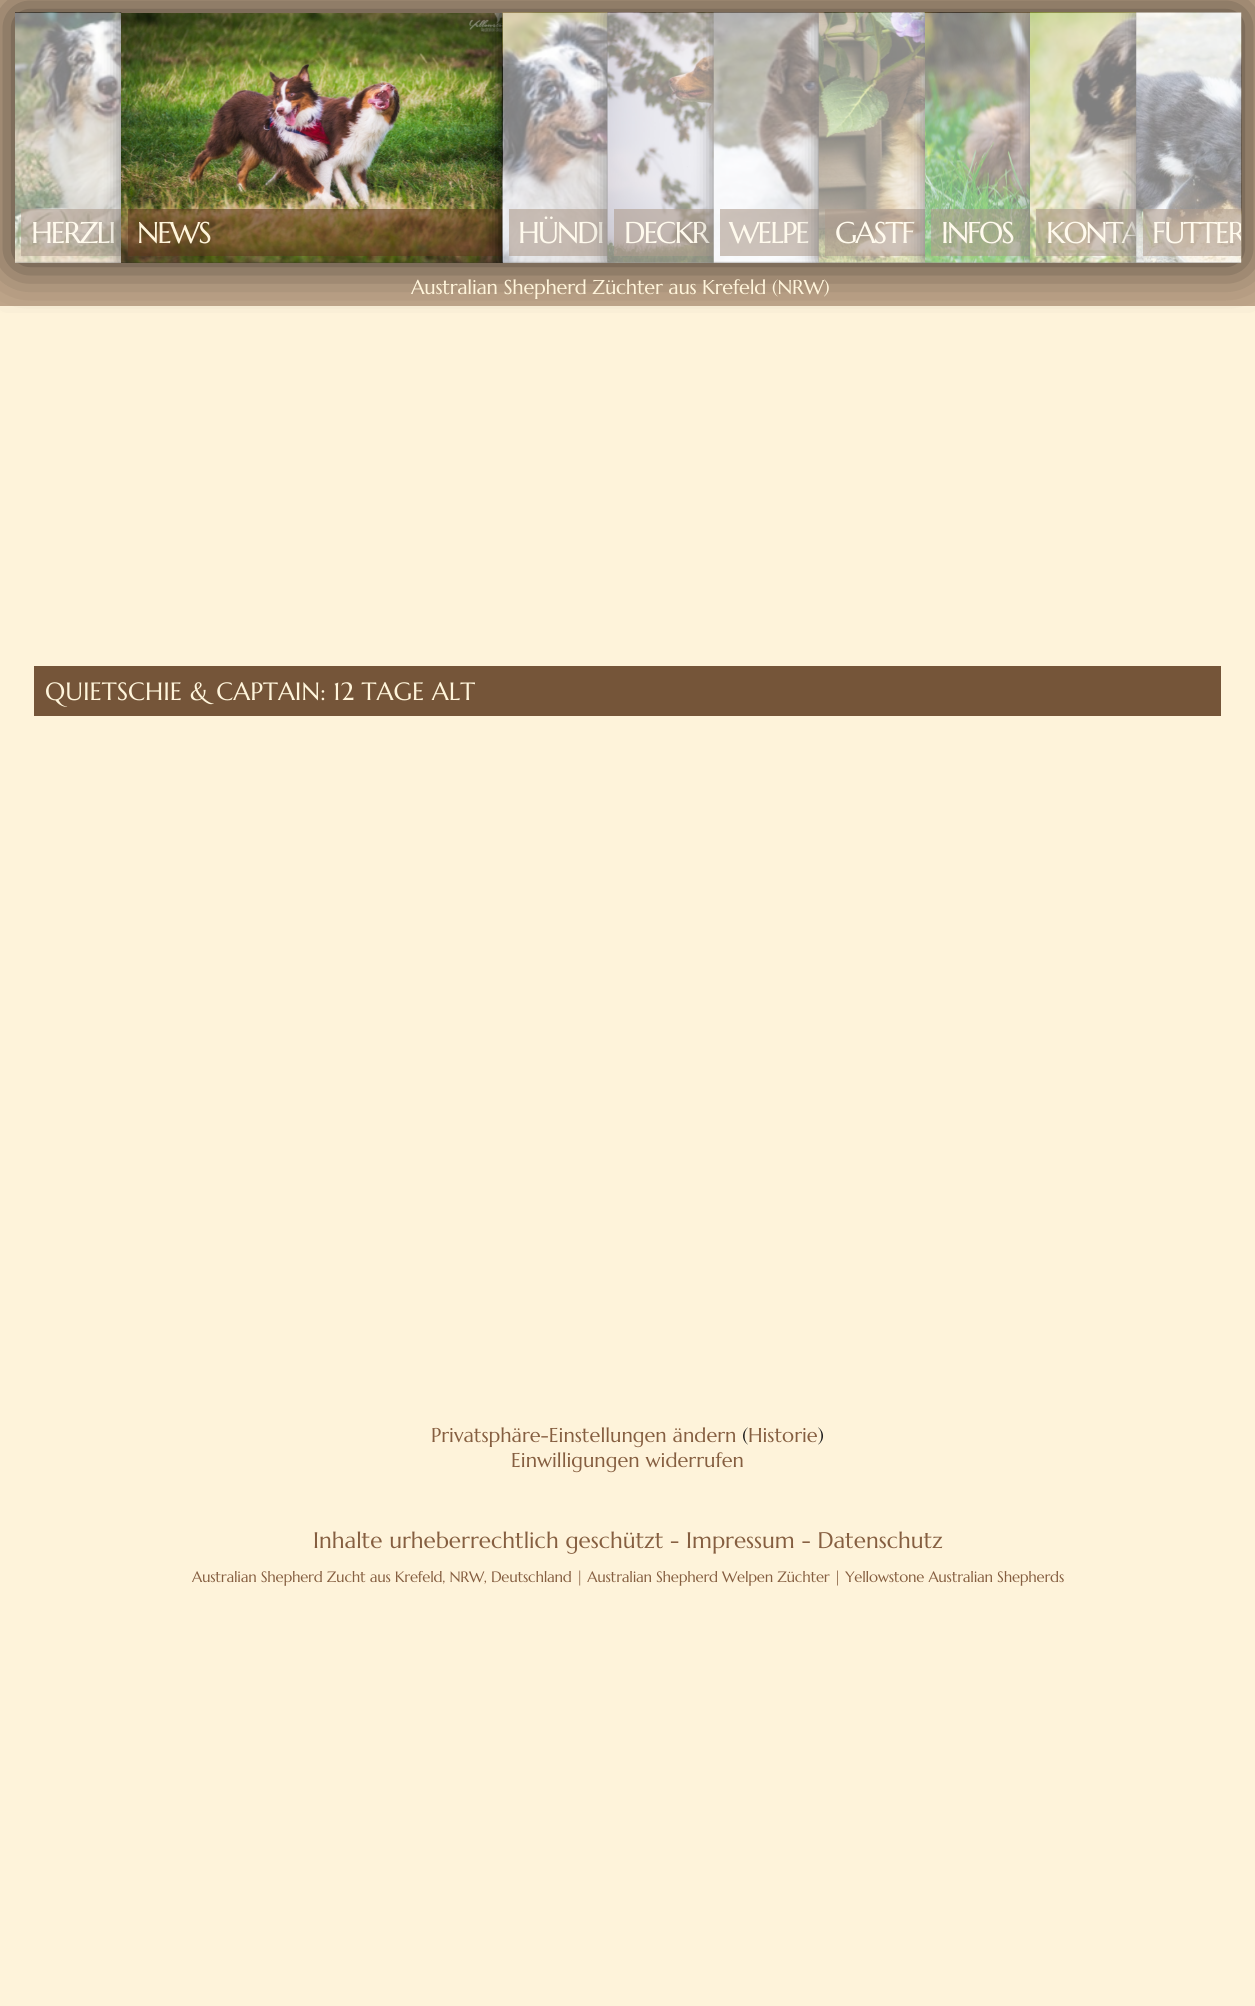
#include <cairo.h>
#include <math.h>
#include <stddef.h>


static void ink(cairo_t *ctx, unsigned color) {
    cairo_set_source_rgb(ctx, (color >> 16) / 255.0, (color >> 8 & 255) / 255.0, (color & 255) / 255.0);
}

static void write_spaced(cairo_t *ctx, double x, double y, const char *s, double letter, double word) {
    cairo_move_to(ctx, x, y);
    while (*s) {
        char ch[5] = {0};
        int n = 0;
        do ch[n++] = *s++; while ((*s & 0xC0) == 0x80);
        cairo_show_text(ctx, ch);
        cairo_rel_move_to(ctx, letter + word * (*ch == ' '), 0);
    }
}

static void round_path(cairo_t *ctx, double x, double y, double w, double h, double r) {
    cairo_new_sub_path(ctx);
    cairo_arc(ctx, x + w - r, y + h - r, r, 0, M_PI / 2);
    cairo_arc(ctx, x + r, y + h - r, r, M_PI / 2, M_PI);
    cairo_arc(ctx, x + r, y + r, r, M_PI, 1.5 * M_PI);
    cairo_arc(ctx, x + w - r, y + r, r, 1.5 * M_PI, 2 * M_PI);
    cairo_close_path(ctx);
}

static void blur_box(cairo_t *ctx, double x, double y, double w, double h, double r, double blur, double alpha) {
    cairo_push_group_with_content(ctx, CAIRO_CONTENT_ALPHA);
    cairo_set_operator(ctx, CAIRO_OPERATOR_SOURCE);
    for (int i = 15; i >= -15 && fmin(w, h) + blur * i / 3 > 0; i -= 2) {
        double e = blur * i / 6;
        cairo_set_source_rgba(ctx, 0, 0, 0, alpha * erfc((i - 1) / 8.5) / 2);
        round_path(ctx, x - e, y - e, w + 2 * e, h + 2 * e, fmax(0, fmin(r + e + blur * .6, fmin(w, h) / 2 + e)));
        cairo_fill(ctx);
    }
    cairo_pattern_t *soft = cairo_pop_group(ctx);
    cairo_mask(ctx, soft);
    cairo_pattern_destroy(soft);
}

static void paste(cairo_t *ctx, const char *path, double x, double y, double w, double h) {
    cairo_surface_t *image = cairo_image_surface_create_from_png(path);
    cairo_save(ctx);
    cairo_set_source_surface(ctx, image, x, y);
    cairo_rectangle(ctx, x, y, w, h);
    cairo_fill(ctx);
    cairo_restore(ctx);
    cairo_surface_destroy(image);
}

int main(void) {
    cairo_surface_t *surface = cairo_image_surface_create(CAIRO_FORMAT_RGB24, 1255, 2006);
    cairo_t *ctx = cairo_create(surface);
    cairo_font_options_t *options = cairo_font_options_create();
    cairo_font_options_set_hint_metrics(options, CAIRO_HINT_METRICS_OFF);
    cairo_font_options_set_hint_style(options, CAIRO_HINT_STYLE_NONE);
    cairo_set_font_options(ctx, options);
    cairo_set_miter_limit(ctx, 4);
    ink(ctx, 0xFEF3DA);
    cairo_paint(ctx);
    ink(ctx, 0xC2A88C);
    cairo_rectangle(ctx, 0, 0, 1255, 306);
    cairo_fill(ctx);
    cairo_save(ctx);
    cairo_rectangle(ctx, 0, 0, 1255, 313);
    cairo_clip(ctx);
    ink(ctx, 0x000000);
    blur_box(ctx, 15, 13, 1226, 250, 0, 25, 0.7);
    cairo_restore(ctx);
    cairo_save(ctx);
    cairo_rectangle(ctx, 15, 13, 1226, 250);
    cairo_clip(ctx);
    ink(ctx, 0x000000);
    blur_box(ctx, 15, 13, 106, 250, 0, 9.5, 1);
    cairo_restore(ctx);
    paste(ctx, "media/1.png", 15, 12, 107, 251);
    cairo_set_source_rgba(ctx, 0.365, 0.224, 0.114, 0.6);
    cairo_rectangle(ctx, 21, 209, 100, 47);
    cairo_fill(ctx);
    cairo_select_font_face(ctx, "Marcellus", CAIRO_FONT_SLANT_NORMAL, CAIRO_FONT_WEIGHT_NORMAL);
    cairo_set_font_size(ctx, 30);
    ink(ctx, 0xFFF5DB);
    write_spaced(ctx, 31, 243, "HERZLI", -2, 0);
    cairo_save(ctx);
    cairo_rectangle(ctx, 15, 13, 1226, 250);
    cairo_clip(ctx);
    ink(ctx, 0x000000);
    blur_box(ctx, 121, 13, 382, 250, 0, 9.5, 1);
    cairo_restore(ctx);
    cairo_set_source_rgba(ctx, 1, 1, 1, 0.5);
    cairo_rectangle(ctx, 15, 13, 106, 250);
    cairo_fill(ctx);
    paste(ctx, "media/2.png", 121, 13, 382, 250);
    cairo_set_source_rgba(ctx, 0.365, 0.224, 0.114, 0.6);
    cairo_rectangle(ctx, 128, 209, 375, 47);
    cairo_fill(ctx);
    ink(ctx, 0xFFF5DB);
    write_spaced(ctx, 137, 243, "NEWS", -2, 0);
    cairo_save(ctx);
    cairo_rectangle(ctx, 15, 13, 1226, 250);
    cairo_clip(ctx);
    ink(ctx, 0x000000);
    blur_box(ctx, 503, 13, 105, 250, 0, 9.5, 1);
    cairo_restore(ctx);
    paste(ctx, "media/3.png", 502, 12, 106, 251);
    cairo_set_source_rgba(ctx, 0.365, 0.224, 0.114, 0.6);
    cairo_rectangle(ctx, 509, 209, 99, 47);
    cairo_fill(ctx);
    ink(ctx, 0xFFF5DB);
    write_spaced(ctx, 518, 243, "HÜNDI", -2, 0);
    cairo_save(ctx);
    cairo_rectangle(ctx, 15, 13, 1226, 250);
    cairo_clip(ctx);
    ink(ctx, 0x000000);
    blur_box(ctx, 608, 13, 106, 250, 0, 9.5, 1);
    cairo_restore(ctx);
    paste(ctx, "media/4.png", 607, 12, 107, 251);
    cairo_set_source_rgba(ctx, 1, 1, 1, 0.5);
    cairo_rectangle(ctx, 503, 13, 105, 250);
    cairo_fill(ctx);
    cairo_set_source_rgba(ctx, 0.365, 0.224, 0.114, 0.6);
    cairo_rectangle(ctx, 614, 209, 100, 47);
    cairo_fill(ctx);
    ink(ctx, 0xFFF5DB);
    write_spaced(ctx, 624, 243, "DECKR", -2, 0);
    cairo_save(ctx);
    cairo_rectangle(ctx, 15, 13, 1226, 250);
    cairo_clip(ctx);
    ink(ctx, 0x000000);
    blur_box(ctx, 714, 13, 105, 250, 0, 9.5, 1);
    cairo_restore(ctx);
    paste(ctx, "media/5.png", 713, 12, 106, 251);
    cairo_set_source_rgba(ctx, 1, 1, 1, 0.5);
    cairo_rectangle(ctx, 608, 13, 106, 250);
    cairo_fill(ctx);
    cairo_set_source_rgba(ctx, 0.365, 0.224, 0.114, 0.6);
    cairo_rectangle(ctx, 720, 209, 99, 47);
    cairo_fill(ctx);
    ink(ctx, 0xFFF5DB);
    write_spaced(ctx, 729, 243, "WELPE", -2, 0);
    cairo_save(ctx);
    cairo_rectangle(ctx, 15, 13, 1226, 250);
    cairo_clip(ctx);
    ink(ctx, 0x000000);
    blur_box(ctx, 819, 13, 106, 250, 0, 9.5, 1);
    cairo_restore(ctx);
    paste(ctx, "media/6.png", 818, 12, 107, 251);
    cairo_set_source_rgba(ctx, 1, 1, 1, 0.5);
    cairo_rectangle(ctx, 714, 13, 105, 250);
    cairo_fill(ctx);
    cairo_set_source_rgba(ctx, 0.365, 0.224, 0.114, 0.6);
    cairo_rectangle(ctx, 825, 209, 100, 47);
    cairo_fill(ctx);
    ink(ctx, 0xFFF5DB);
    write_spaced(ctx, 835, 243, "GASTF", -2, 0);
    cairo_save(ctx);
    cairo_rectangle(ctx, 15, 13, 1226, 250);
    cairo_clip(ctx);
    ink(ctx, 0x000000);
    blur_box(ctx, 925, 13, 105, 250, 0, 9.5, 1);
    cairo_restore(ctx);
    cairo_set_source_rgba(ctx, 1, 1, 1, 0.5);
    cairo_rectangle(ctx, 819, 13, 106, 250);
    cairo_fill(ctx);
    paste(ctx, "media/7.png", 925, 12, 105, 251);
    cairo_set_source_rgba(ctx, 0.365, 0.224, 0.114, 0.6);
    cairo_rectangle(ctx, 931, 209, 99, 47);
    cairo_fill(ctx);
    ink(ctx, 0xFFF5DB);
    write_spaced(ctx, 941, 243, "INFOS", -2, 0);
    cairo_save(ctx);
    cairo_rectangle(ctx, 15, 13, 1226, 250);
    cairo_clip(ctx);
    ink(ctx, 0x000000);
    blur_box(ctx, 1030, 13, 106, 250, 0, 9.5, 1);
    cairo_restore(ctx);
    cairo_set_source_rgba(ctx, 1, 1, 1, 0.5);
    cairo_rectangle(ctx, 925, 13, 105, 250);
    cairo_fill(ctx);
    paste(ctx, "media/8.png", 1030, 12, 107, 251);
    cairo_set_source_rgba(ctx, 0.365, 0.224, 0.114, 0.6);
    cairo_rectangle(ctx, 1036, 209, 100, 47);
    cairo_fill(ctx);
    cairo_save(ctx);
    cairo_rectangle(ctx, 1043, 215, 93, 41);
    cairo_clip(ctx);
    ink(ctx, 0xFFF5DB);
    write_spaced(ctx, 1046, 243, "KONTA", -2, 0);
    cairo_restore(ctx);
    cairo_save(ctx);
    cairo_rectangle(ctx, 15, 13, 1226, 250);
    cairo_clip(ctx);
    ink(ctx, 0x000000);
    blur_box(ctx, 1136, 13, 105, 250, 0, 9.5, 1);
    cairo_restore(ctx);
    cairo_set_source_rgba(ctx, 1, 1, 1, 0.5);
    cairo_rectangle(ctx, 1030, 13, 106, 250);
    cairo_fill(ctx);
    paste(ctx, "media/9.png", 1136, 12, 106, 251);
    cairo_set_source_rgba(ctx, 0.365, 0.224, 0.114, 0.6);
    cairo_rectangle(ctx, 1143, 209, 98, 47);
    cairo_fill(ctx);
    cairo_save(ctx);
    cairo_rectangle(ctx, 1149, 215, 92, 41);
    cairo_clip(ctx);
    ink(ctx, 0xFFF5DB);
    write_spaced(ctx, 1152, 243, "FUTTER", -2, 0);
    cairo_restore(ctx);
    cairo_set_source_rgba(ctx, 1, 1, 1, 0.5);
    cairo_rectangle(ctx, 1136, 13, 105, 250);
    cairo_fill(ctx);
    cairo_set_font_size(ctx, 20);
    ink(ctx, 0xFFF5DB);
    write_spaced(ctx, 411, 294, "Australian Shepherd Züchter aus Krefeld (NRW)", -0.25, 0);
    ink(ctx, 0x755539);
    cairo_rectangle(ctx, 34, 666, 1187, 50);
    cairo_fill(ctx);
    cairo_set_font_size(ctx, 25);
    ink(ctx, 0xFFF5DB);
    cairo_move_to(ctx, 45, 700);
    cairo_show_text(ctx, "QUIETSCHIE & CAPTAIN: 12 TAGE ALT");
    cairo_set_font_size(ctx, 20);
    ink(ctx, 0x855E40);
    cairo_move_to(ctx, 431, 1442);
    cairo_show_text(ctx, "Privatsphäre-Einstellungen ändern");
    ink(ctx, 0x222222);
    cairo_move_to(ctx, 742, 1442);
    cairo_show_text(ctx, "(");
    ink(ctx, 0x855E40);
    cairo_move_to(ctx, 748, 1442);
    cairo_show_text(ctx, "Historie");
    ink(ctx, 0x222222);
    cairo_move_to(ctx, 818, 1442);
    cairo_show_text(ctx, ")");
    ink(ctx, 0x855E40);
    cairo_move_to(ctx, 511, 1467);
    cairo_show_text(ctx, "Einwilligungen widerrufen");
    cairo_set_font_size(ctx, 22.5);
    cairo_move_to(ctx, 313, 1548);
    cairo_show_text(ctx, "Inhalte urheberrechtlich geschützt - Impressum - Datenschutz");
    cairo_set_font_size(ctx, 15);
    write_spaced(ctx, 192, 1582, "Australian Shepherd Zucht aus Krefeld, NRW, Deutschland | Australian Shepherd Welpen Züchter | Yellowstone Australian Shepherds", -0.25, 0);
    cairo_surface_write_to_png(surface, "image.png");
    cairo_font_options_destroy(options);
    cairo_destroy(ctx);
    cairo_surface_destroy(surface);
    return 0;
}
